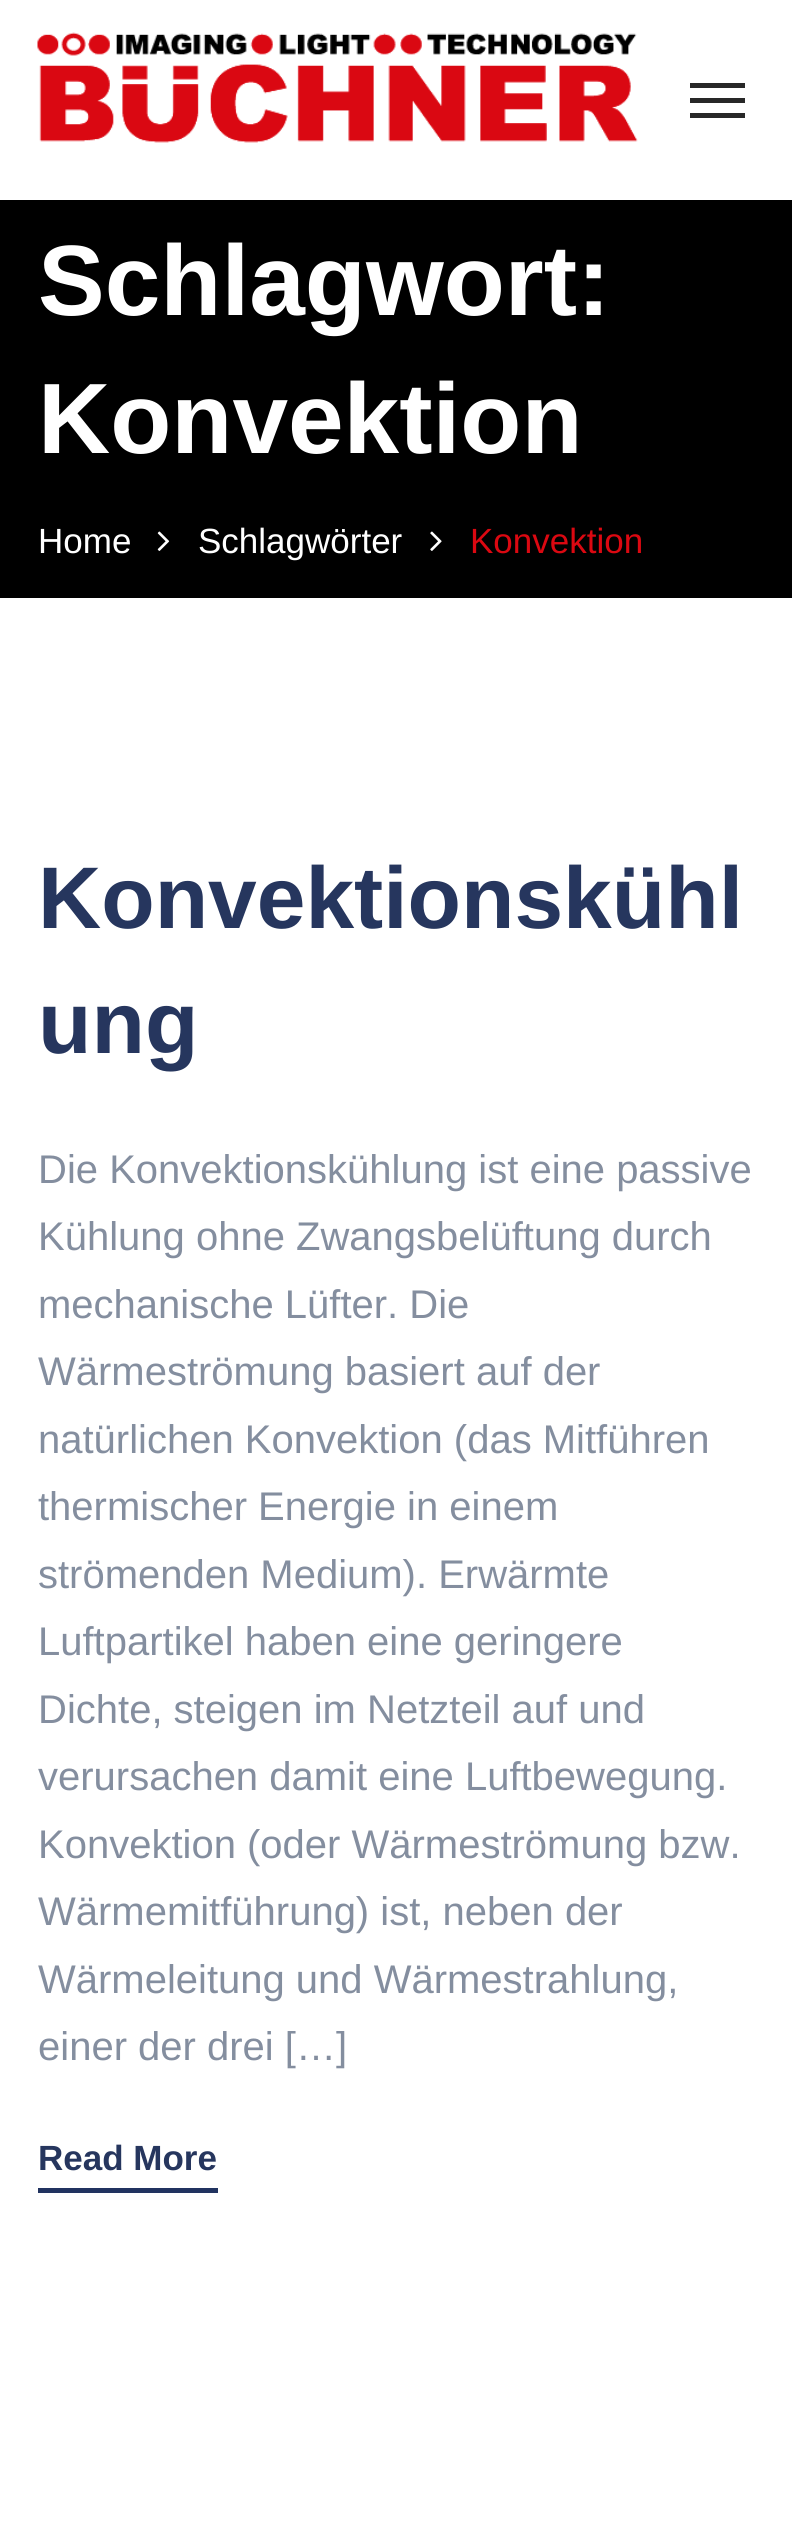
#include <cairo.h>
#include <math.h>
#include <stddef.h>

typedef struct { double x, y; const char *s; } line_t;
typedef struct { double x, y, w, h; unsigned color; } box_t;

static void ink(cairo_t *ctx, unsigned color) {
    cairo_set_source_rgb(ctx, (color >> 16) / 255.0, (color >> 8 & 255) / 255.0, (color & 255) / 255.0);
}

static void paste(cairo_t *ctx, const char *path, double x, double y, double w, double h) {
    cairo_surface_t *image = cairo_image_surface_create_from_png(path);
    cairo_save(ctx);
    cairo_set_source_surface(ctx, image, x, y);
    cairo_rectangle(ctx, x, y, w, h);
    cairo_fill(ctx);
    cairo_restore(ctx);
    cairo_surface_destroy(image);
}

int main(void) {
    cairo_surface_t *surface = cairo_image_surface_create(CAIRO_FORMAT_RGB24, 792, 2532);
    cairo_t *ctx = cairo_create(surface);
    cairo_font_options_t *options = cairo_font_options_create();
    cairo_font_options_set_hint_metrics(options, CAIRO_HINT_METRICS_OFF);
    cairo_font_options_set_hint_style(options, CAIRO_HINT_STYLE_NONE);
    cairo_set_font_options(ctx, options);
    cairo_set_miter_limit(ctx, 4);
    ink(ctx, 0xFFFFFF);
    cairo_paint(ctx);
    paste(ctx, "media/1.png", 37, 32, 601, 111);
    {
        static const box_t items[] = {
            {690, 83, 55, 5, 0x282828},
            {690, 98, 55, 5, 0x282828},
            {690, 113, 55, 5, 0x282828},
            {0, 200, 792, 398, 0x000000},
        };
        for (size_t i = 0; i < sizeof items / sizeof *items; i++) {
            ink(ctx, items[i].color);
            cairo_rectangle(ctx, items[i].x, items[i].y, items[i].w, items[i].h);
            cairo_fill(ctx);
        }
    }
    cairo_select_font_face(ctx, "Liberation Sans", CAIRO_FONT_SLANT_NORMAL, CAIRO_FONT_WEIGHT_BOLD);
    cairo_set_font_size(ctx, 100);
    ink(ctx, 0xFFFFFF);
    cairo_move_to(ctx, 38, 315);
    cairo_show_text(ctx, "Schlagwort:");
    cairo_move_to(ctx, 38, 453);
    cairo_show_text(ctx, "Konvektion");
    cairo_select_font_face(ctx, "Liberation Sans", CAIRO_FONT_SLANT_NORMAL, CAIRO_FONT_WEIGHT_NORMAL);
    cairo_set_font_size(ctx, 35);
    cairo_move_to(ctx, 38, 553);
    cairo_show_text(ctx, "Home");
    paste(ctx, "media/2.png", 157, 531, 13, 20);
    cairo_move_to(ctx, 198, 553);
    cairo_show_text(ctx, "Schlagwörter");
    paste(ctx, "media/3.png", 430, 531, 12, 20);
    ink(ctx, 0xDB0811);
    cairo_move_to(ctx, 470, 553);
    cairo_show_text(ctx, "Konvektion");
    cairo_select_font_face(ctx, "Liberation Sans", CAIRO_FONT_SLANT_NORMAL, CAIRO_FONT_WEIGHT_BOLD);
    cairo_set_font_size(ctx, 87.5);
    ink(ctx, 0x26365E);
    cairo_move_to(ctx, 38, 928);
    cairo_show_text(ctx, "Konvektionskühl");
    cairo_move_to(ctx, 38, 1053);
    cairo_show_text(ctx, "ung");
    cairo_select_font_face(ctx, "Liberation Sans", CAIRO_FONT_SLANT_NORMAL, CAIRO_FONT_WEIGHT_NORMAL);
    cairo_set_font_size(ctx, 40);
    ink(ctx, 0x848E9F);
    {
        static const line_t items[] = {
            {38, 1183, "Die Konvektionskühlung ist eine passive"},
            {38, 1250, "Kühlung ohne Zwangsbelüftung durch"},
            {38, 1318, "mechanische Lüfter. Die"},
            {38, 1385, "Wärmeströmung basiert auf der"},
            {38, 1453, "natürlichen Konvektion (das Mitführen"},
            {38, 1520, "thermischer Energie in einem"},
            {38, 1588, "strömenden Medium). Erwärmte"},
            {38, 1655, "Luftpartikel haben eine geringere"},
            {38, 1723, "Dichte, steigen im Netzteil auf und"},
            {38, 1790, "verursachen damit eine Luftbewegung."},
            {38, 1858, "Konvektion (oder Wärmeströmung bzw."},
            {38, 1925, "Wärmemitführung) ist, neben der"},
            {38, 1993, "Wärmeleitung und Wärmestrahlung,"},
            {38, 2060, "einer der drei […]"},
        };
        for (size_t i = 0; i < sizeof items / sizeof *items; i++) {
            cairo_move_to(ctx, items[i].x, items[i].y);
            cairo_show_text(ctx, items[i].s);
        }
    }
    ink(ctx, 0x213360);
    cairo_rectangle(ctx, 38, 2188, 180, 5);
    cairo_fill(ctx);
    cairo_select_font_face(ctx, "Liberation Sans", CAIRO_FONT_SLANT_NORMAL, CAIRO_FONT_WEIGHT_BOLD);
    cairo_set_font_size(ctx, 35);
    ink(ctx, 0x26365E);
    cairo_move_to(ctx, 38, 2170);
    cairo_show_text(ctx, "Read More");
    cairo_surface_write_to_png(surface, "image.png");
    cairo_font_options_destroy(options);
    cairo_destroy(ctx);
    cairo_surface_destroy(surface);
    return 0;
}
